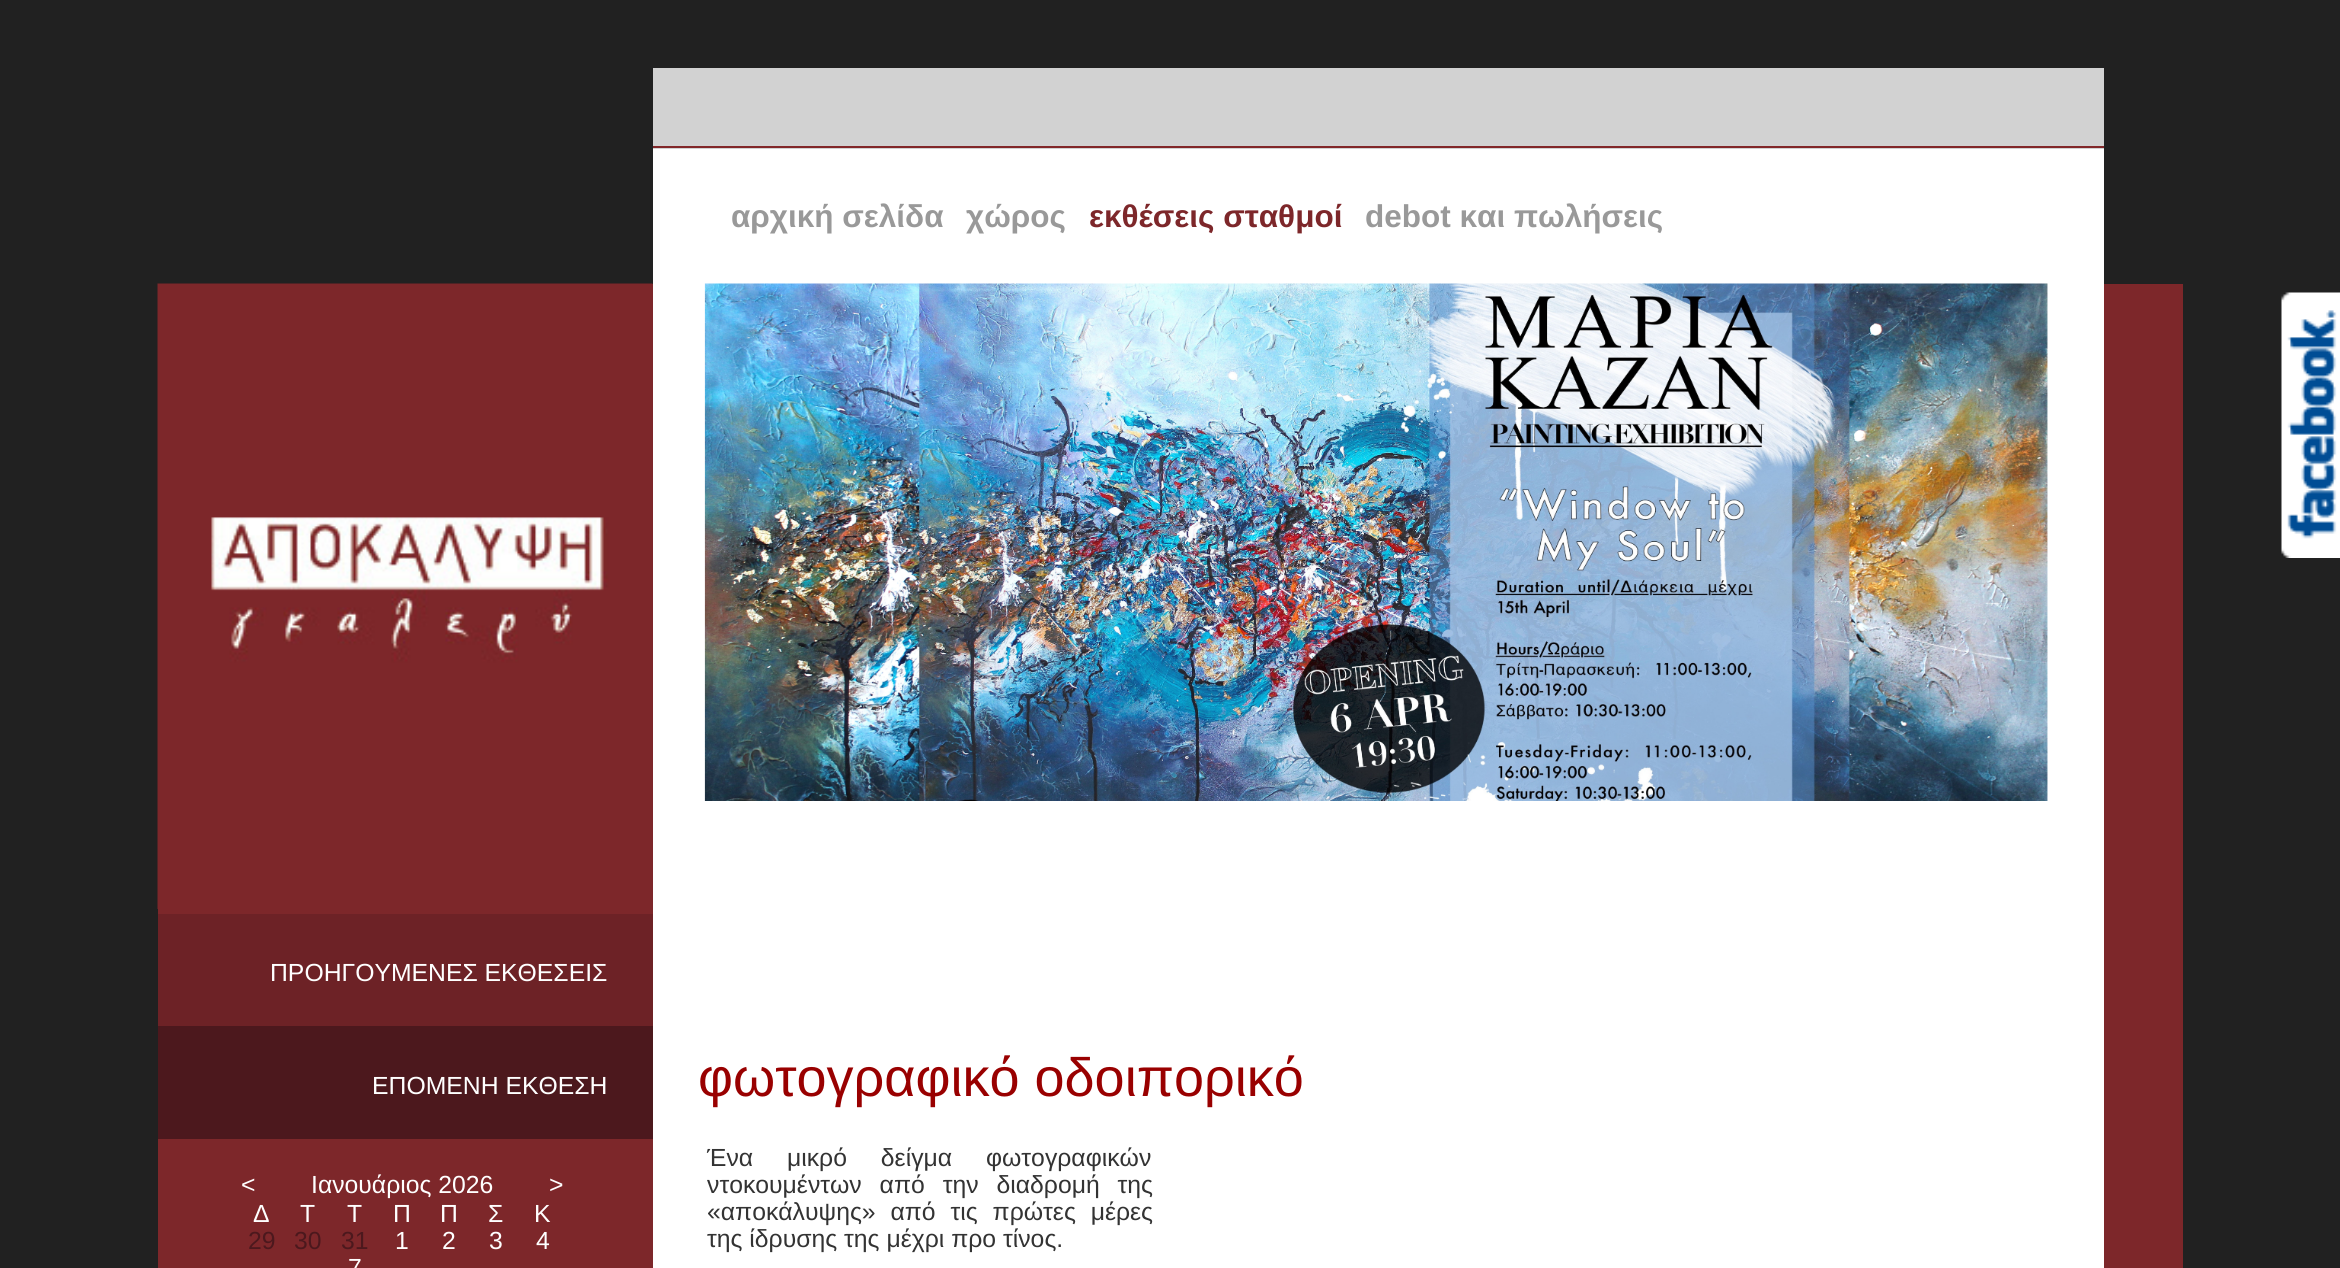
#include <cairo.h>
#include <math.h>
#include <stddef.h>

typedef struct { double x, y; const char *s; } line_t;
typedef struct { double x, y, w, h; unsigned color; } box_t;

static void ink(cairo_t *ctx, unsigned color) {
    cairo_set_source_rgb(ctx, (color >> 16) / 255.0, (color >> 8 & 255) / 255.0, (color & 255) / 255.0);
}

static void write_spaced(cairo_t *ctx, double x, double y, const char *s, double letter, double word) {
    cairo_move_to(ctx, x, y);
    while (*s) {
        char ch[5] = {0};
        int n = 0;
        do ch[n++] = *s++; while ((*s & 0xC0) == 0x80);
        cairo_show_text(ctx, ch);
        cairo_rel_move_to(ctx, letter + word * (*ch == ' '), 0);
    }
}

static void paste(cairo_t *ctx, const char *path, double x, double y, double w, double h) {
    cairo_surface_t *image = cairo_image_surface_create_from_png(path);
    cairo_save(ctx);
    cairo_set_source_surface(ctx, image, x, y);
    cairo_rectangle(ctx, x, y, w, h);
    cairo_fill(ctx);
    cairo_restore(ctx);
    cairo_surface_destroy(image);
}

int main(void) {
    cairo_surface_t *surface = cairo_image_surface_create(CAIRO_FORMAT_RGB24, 2340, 1268);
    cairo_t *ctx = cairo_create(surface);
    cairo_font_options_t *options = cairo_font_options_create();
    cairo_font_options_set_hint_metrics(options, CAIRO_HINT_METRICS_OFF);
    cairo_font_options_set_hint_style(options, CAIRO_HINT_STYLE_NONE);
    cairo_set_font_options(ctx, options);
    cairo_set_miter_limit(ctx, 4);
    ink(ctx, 0x212121);
    cairo_paint(ctx);
    {
        static const box_t items[] = {
            {653, 68, 1451, 81, 0xD2D2D2},
            {653, 146, 1451, 2, 0x822729},
            {653, 149, 1451, 1119, 0xFFFFFF},
        };
        for (size_t i = 0; i < sizeof items / sizeof *items; i++) {
            ink(ctx, items[i].color);
            cairo_rectangle(ctx, items[i].x, items[i].y, items[i].w, items[i].h);
            cairo_fill(ctx);
        }
    }
    cairo_select_font_face(ctx, "Liberation Sans", CAIRO_FONT_SLANT_NORMAL, CAIRO_FONT_WEIGHT_BOLD);
    cairo_set_font_size(ctx, 31.5);
    ink(ctx, 0x999999);
    cairo_move_to(ctx, 731, 227);
    cairo_show_text(ctx, "αρχική σελίδα");
    cairo_move_to(ctx, 966, 227);
    cairo_show_text(ctx, "χώρος");
    ink(ctx, 0x7D272A);
    cairo_move_to(ctx, 1089, 227);
    cairo_show_text(ctx, "εκθέσεις σταθμοί");
    ink(ctx, 0x999999);
    cairo_move_to(ctx, 1365, 227);
    cairo_show_text(ctx, "debot και πωλήσεις");
    ink(ctx, 0x7D272A);
    cairo_rectangle(ctx, 158, 284, 495, 984);
    cairo_fill(ctx);
    paste(ctx, "media/1.png", 157, 283, 496, 626);
    ink(ctx, 0x6D2226);
    cairo_rectangle(ctx, 158, 914, 495, 112);
    cairo_fill(ctx);
    cairo_select_font_face(ctx, "Liberation Sans", CAIRO_FONT_SLANT_NORMAL, CAIRO_FONT_WEIGHT_NORMAL);
    cairo_set_font_size(ctx, 24.75);
    ink(ctx, 0xFFFFFF);
    cairo_move_to(ctx, 270, 981);
    cairo_show_text(ctx, "ΠΡΟΗΓΟΥΜΕΝΕΣ ΕΚΘΕΣΕΙΣ");
    ink(ctx, 0x4C181D);
    cairo_rectangle(ctx, 158, 1026, 495, 113);
    cairo_fill(ctx);
    ink(ctx, 0xFFFFFF);
    {
        static const line_t items[] = {
            {372, 1094, "ΕΠΟΜΕΝΗ ΕΚΘΕΣΗ"},
            {241, 1193, "<"},
            {311, 1193, "Ιανουάριος 2026"},
            {549, 1193, ">"},
            {253, 1222, "Δ"},
            {300, 1222, "Τ"},
            {347, 1222, "Τ"},
            {393, 1222, "Π"},
            {440, 1222, "Π"},
            {488, 1222, "Σ"},
            {534, 1222, "Κ"},
        };
        for (size_t i = 0; i < sizeof items / sizeof *items; i++) {
            cairo_move_to(ctx, items[i].x, items[i].y);
            cairo_show_text(ctx, items[i].s);
        }
    }
    ink(ctx, 0x4C181D);
    {
        static const line_t items[] = {
            {248, 1249, "29"},
            {294, 1249, "30"},
            {341, 1249, "31"},
        };
        for (size_t i = 0; i < sizeof items / sizeof *items; i++) {
            cairo_move_to(ctx, items[i].x, items[i].y);
            cairo_show_text(ctx, items[i].s);
        }
    }
    ink(ctx, 0xFFFFFF);
    {
        static const line_t items[] = {
            {395, 1249, "1"},
            {442, 1249, "2"},
            {489, 1249, "3"},
            {536, 1249, "4"},
            {348, 1276, "7"},
        };
        for (size_t i = 0; i < sizeof items / sizeof *items; i++) {
            cairo_move_to(ctx, items[i].x, items[i].y);
            cairo_show_text(ctx, items[i].s);
        }
    }
    paste(ctx, "media/2.png", 704, 283, 1344, 518);
    cairo_set_font_size(ctx, 54);
    ink(ctx, 0x990000);
    cairo_move_to(ctx, 698, 1096);
    cairo_show_text(ctx, "φωτογραφικό οδοιπορικό");
    cairo_set_font_size(ctx, 24.75);
    ink(ctx, 0x333333);
    write_spaced(ctx, 707, 1166, "Ένα μικρό δείγμα φωτογραφικών", 0, 27);
    write_spaced(ctx, 707, 1193, "ντοκουμέντων από την διαδρομή της", 0, 11);
    write_spaced(ctx, 707, 1220, "«αποκάλυψης» από τις πρώτες μέρες", 0, 8);
    cairo_move_to(ctx, 707, 1247);
    cairo_show_text(ctx, "της ίδρυσης της μέχρι προ τίνος.");
    ink(ctx, 0x7D272A);
    cairo_rectangle(ctx, 2104, 284, 79, 984);
    cairo_fill(ctx);
    paste(ctx, "media/3.png", 2281, 292, 59, 266);
    cairo_surface_write_to_png(surface, "image.png");
    cairo_font_options_destroy(options);
    cairo_destroy(ctx);
    cairo_surface_destroy(surface);
    return 0;
}
